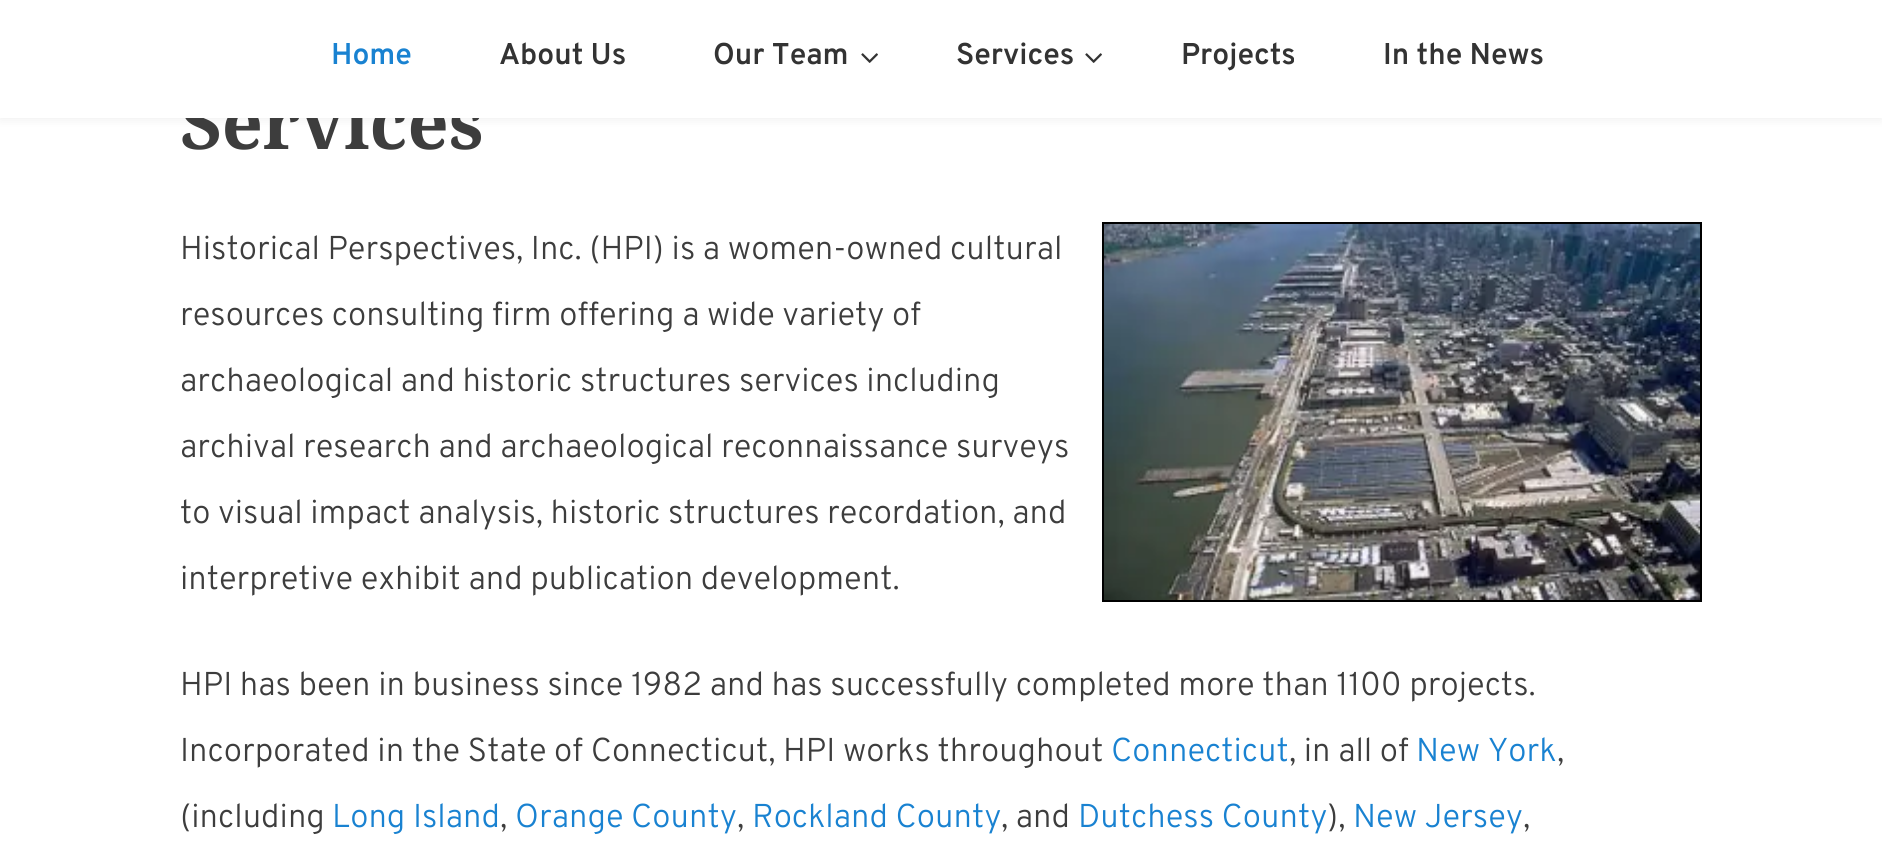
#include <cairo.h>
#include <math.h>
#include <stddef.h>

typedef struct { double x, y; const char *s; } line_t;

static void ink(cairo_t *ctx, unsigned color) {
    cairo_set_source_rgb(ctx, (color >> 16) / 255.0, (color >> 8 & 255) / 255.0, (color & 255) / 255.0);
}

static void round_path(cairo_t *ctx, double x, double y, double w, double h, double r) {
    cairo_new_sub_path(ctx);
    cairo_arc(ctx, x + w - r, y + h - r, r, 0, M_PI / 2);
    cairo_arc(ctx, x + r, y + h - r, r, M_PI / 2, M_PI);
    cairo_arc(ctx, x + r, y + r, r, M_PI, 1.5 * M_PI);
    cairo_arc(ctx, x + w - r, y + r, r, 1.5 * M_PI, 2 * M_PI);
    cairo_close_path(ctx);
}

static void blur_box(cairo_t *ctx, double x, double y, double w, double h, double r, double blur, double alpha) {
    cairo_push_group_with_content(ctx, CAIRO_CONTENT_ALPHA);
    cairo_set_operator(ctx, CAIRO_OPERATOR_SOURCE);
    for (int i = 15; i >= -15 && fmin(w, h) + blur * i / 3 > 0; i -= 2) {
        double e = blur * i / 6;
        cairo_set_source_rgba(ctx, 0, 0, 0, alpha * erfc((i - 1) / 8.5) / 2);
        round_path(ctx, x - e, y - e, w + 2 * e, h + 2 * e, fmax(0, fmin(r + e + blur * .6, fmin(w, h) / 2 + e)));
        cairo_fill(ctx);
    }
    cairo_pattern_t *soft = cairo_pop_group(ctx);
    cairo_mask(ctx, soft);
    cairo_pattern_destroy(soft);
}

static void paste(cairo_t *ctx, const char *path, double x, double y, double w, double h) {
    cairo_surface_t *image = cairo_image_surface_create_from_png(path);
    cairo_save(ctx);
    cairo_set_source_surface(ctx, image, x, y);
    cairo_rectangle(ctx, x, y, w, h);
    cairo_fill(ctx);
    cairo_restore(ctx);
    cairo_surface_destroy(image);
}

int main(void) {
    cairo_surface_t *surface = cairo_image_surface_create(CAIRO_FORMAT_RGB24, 1882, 867);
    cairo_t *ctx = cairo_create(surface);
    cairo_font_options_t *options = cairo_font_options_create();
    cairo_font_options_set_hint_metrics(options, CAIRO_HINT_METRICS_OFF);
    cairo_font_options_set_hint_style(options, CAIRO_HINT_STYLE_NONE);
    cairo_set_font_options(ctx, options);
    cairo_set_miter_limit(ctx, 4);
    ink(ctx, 0xFFFFFF);
    cairo_paint(ctx);
    ink(ctx, 0x000000);
    blur_box(ctx, 0, 0, 1882, 118, 0, 6, 0.08);
    cairo_select_font_face(ctx, "Noto Serif", CAIRO_FONT_SLANT_NORMAL, CAIRO_FONT_WEIGHT_BOLD);
    cairo_set_font_size(ctx, 72);
    ink(ctx, 0x3D3D3D);
    cairo_move_to(ctx, 180, 149);
    cairo_show_text(ctx, "Services");
    ink(ctx, 0xFFFFFF);
    cairo_rectangle(ctx, 0, 0, 1882, 118);
    cairo_fill(ctx);
    cairo_select_font_face(ctx, "Overpass SemiBold", CAIRO_FONT_SLANT_NORMAL, CAIRO_FONT_WEIGHT_NORMAL);
    cairo_set_font_size(ctx, 30);
    ink(ctx, 0x1982D1);
    cairo_move_to(ctx, 331, 64);
    cairo_show_text(ctx, "Home");
    ink(ctx, 0x333333);
    cairo_move_to(ctx, 499, 64);
    cairo_show_text(ctx, "About Us");
    cairo_move_to(ctx, 713, 64);
    cairo_show_text(ctx, "Our Team");
    paste(ctx, "media/1.png", 861, 53, 17, 10);
    cairo_move_to(ctx, 956, 64);
    cairo_show_text(ctx, "Services");
    paste(ctx, "media/1.png", 1085, 53, 17, 10);
    cairo_move_to(ctx, 1181, 64);
    cairo_show_text(ctx, "Projects");
    cairo_move_to(ctx, 1383, 64);
    cairo_show_text(ctx, "In the News");
    cairo_select_font_face(ctx, "Overpass Light", CAIRO_FONT_SLANT_NORMAL, CAIRO_FONT_WEIGHT_NORMAL);
    cairo_set_font_size(ctx, 33);
    ink(ctx, 0x3D3D3D);
    {
        static const line_t items[] = {
            {180, 259, "Historical Perspectives, Inc. (HPI) is a women-owned cultural"},
            {180, 325, "resources consulting firm offering a wide variety of"},
            {180, 391, "archaeological and historic structures services including"},
            {180, 457, "archival research and archaeological reconnaissance surveys"},
            {180, 523, "to visual impact analysis, historic structures recordation, and"},
            {180, 589, "interpretive exhibit and publication development."},
        };
        for (size_t i = 0; i < sizeof items / sizeof *items; i++) {
            cairo_move_to(ctx, items[i].x, items[i].y);
            cairo_show_text(ctx, items[i].s);
        }
    }
    cairo_rectangle(ctx, 1103, 223, 598, 378);
    ink(ctx, 0x000000);
    cairo_stroke(ctx);
    paste(ctx, "media/2.png", 1104, 224, 596, 376);
    ink(ctx, 0x3D3D3D);
    cairo_move_to(ctx, 180, 695);
    cairo_show_text(ctx, "HPI has been in business since 1982 and has successfully completed more than 1100 projects.");
    cairo_move_to(ctx, 180, 761);
    cairo_show_text(ctx, "Incorporated in the State of Connecticut, HPI works throughout");
    ink(ctx, 0x1982D1);
    cairo_move_to(ctx, 1111, 761);
    cairo_show_text(ctx, "Connecticut");
    ink(ctx, 0x3D3D3D);
    cairo_move_to(ctx, 1289, 761);
    cairo_show_text(ctx, ", in all of");
    ink(ctx, 0x1982D1);
    cairo_move_to(ctx, 1416, 761);
    cairo_show_text(ctx, "New York");
    ink(ctx, 0x3D3D3D);
    cairo_move_to(ctx, 1557, 761);
    cairo_show_text(ctx, ",");
    cairo_move_to(ctx, 180, 827);
    cairo_show_text(ctx, "(including");
    ink(ctx, 0x1982D1);
    cairo_move_to(ctx, 332, 827);
    cairo_show_text(ctx, "Long Island");
    ink(ctx, 0x3D3D3D);
    cairo_move_to(ctx, 500, 827);
    cairo_show_text(ctx, ",");
    ink(ctx, 0x1982D1);
    cairo_move_to(ctx, 515, 827);
    cairo_show_text(ctx, "Orange County");
    ink(ctx, 0x3D3D3D);
    cairo_move_to(ctx, 737, 827);
    cairo_show_text(ctx, ",");
    ink(ctx, 0x1982D1);
    cairo_move_to(ctx, 752, 827);
    cairo_show_text(ctx, "Rockland County");
    ink(ctx, 0x3D3D3D);
    cairo_move_to(ctx, 1001, 827);
    cairo_show_text(ctx, ", and");
    ink(ctx, 0x1982D1);
    cairo_move_to(ctx, 1078, 827);
    cairo_show_text(ctx, "Dutchess County");
    ink(ctx, 0x3D3D3D);
    cairo_move_to(ctx, 1327, 827);
    cairo_show_text(ctx, "),");
    ink(ctx, 0x1982D1);
    cairo_move_to(ctx, 1353, 827);
    cairo_show_text(ctx, "New Jersey");
    ink(ctx, 0x3D3D3D);
    cairo_move_to(ctx, 1523, 827);
    cairo_show_text(ctx, ",");
    cairo_surface_write_to_png(surface, "image.png");
    cairo_font_options_destroy(options);
    cairo_destroy(ctx);
    cairo_surface_destroy(surface);
    return 0;
}
